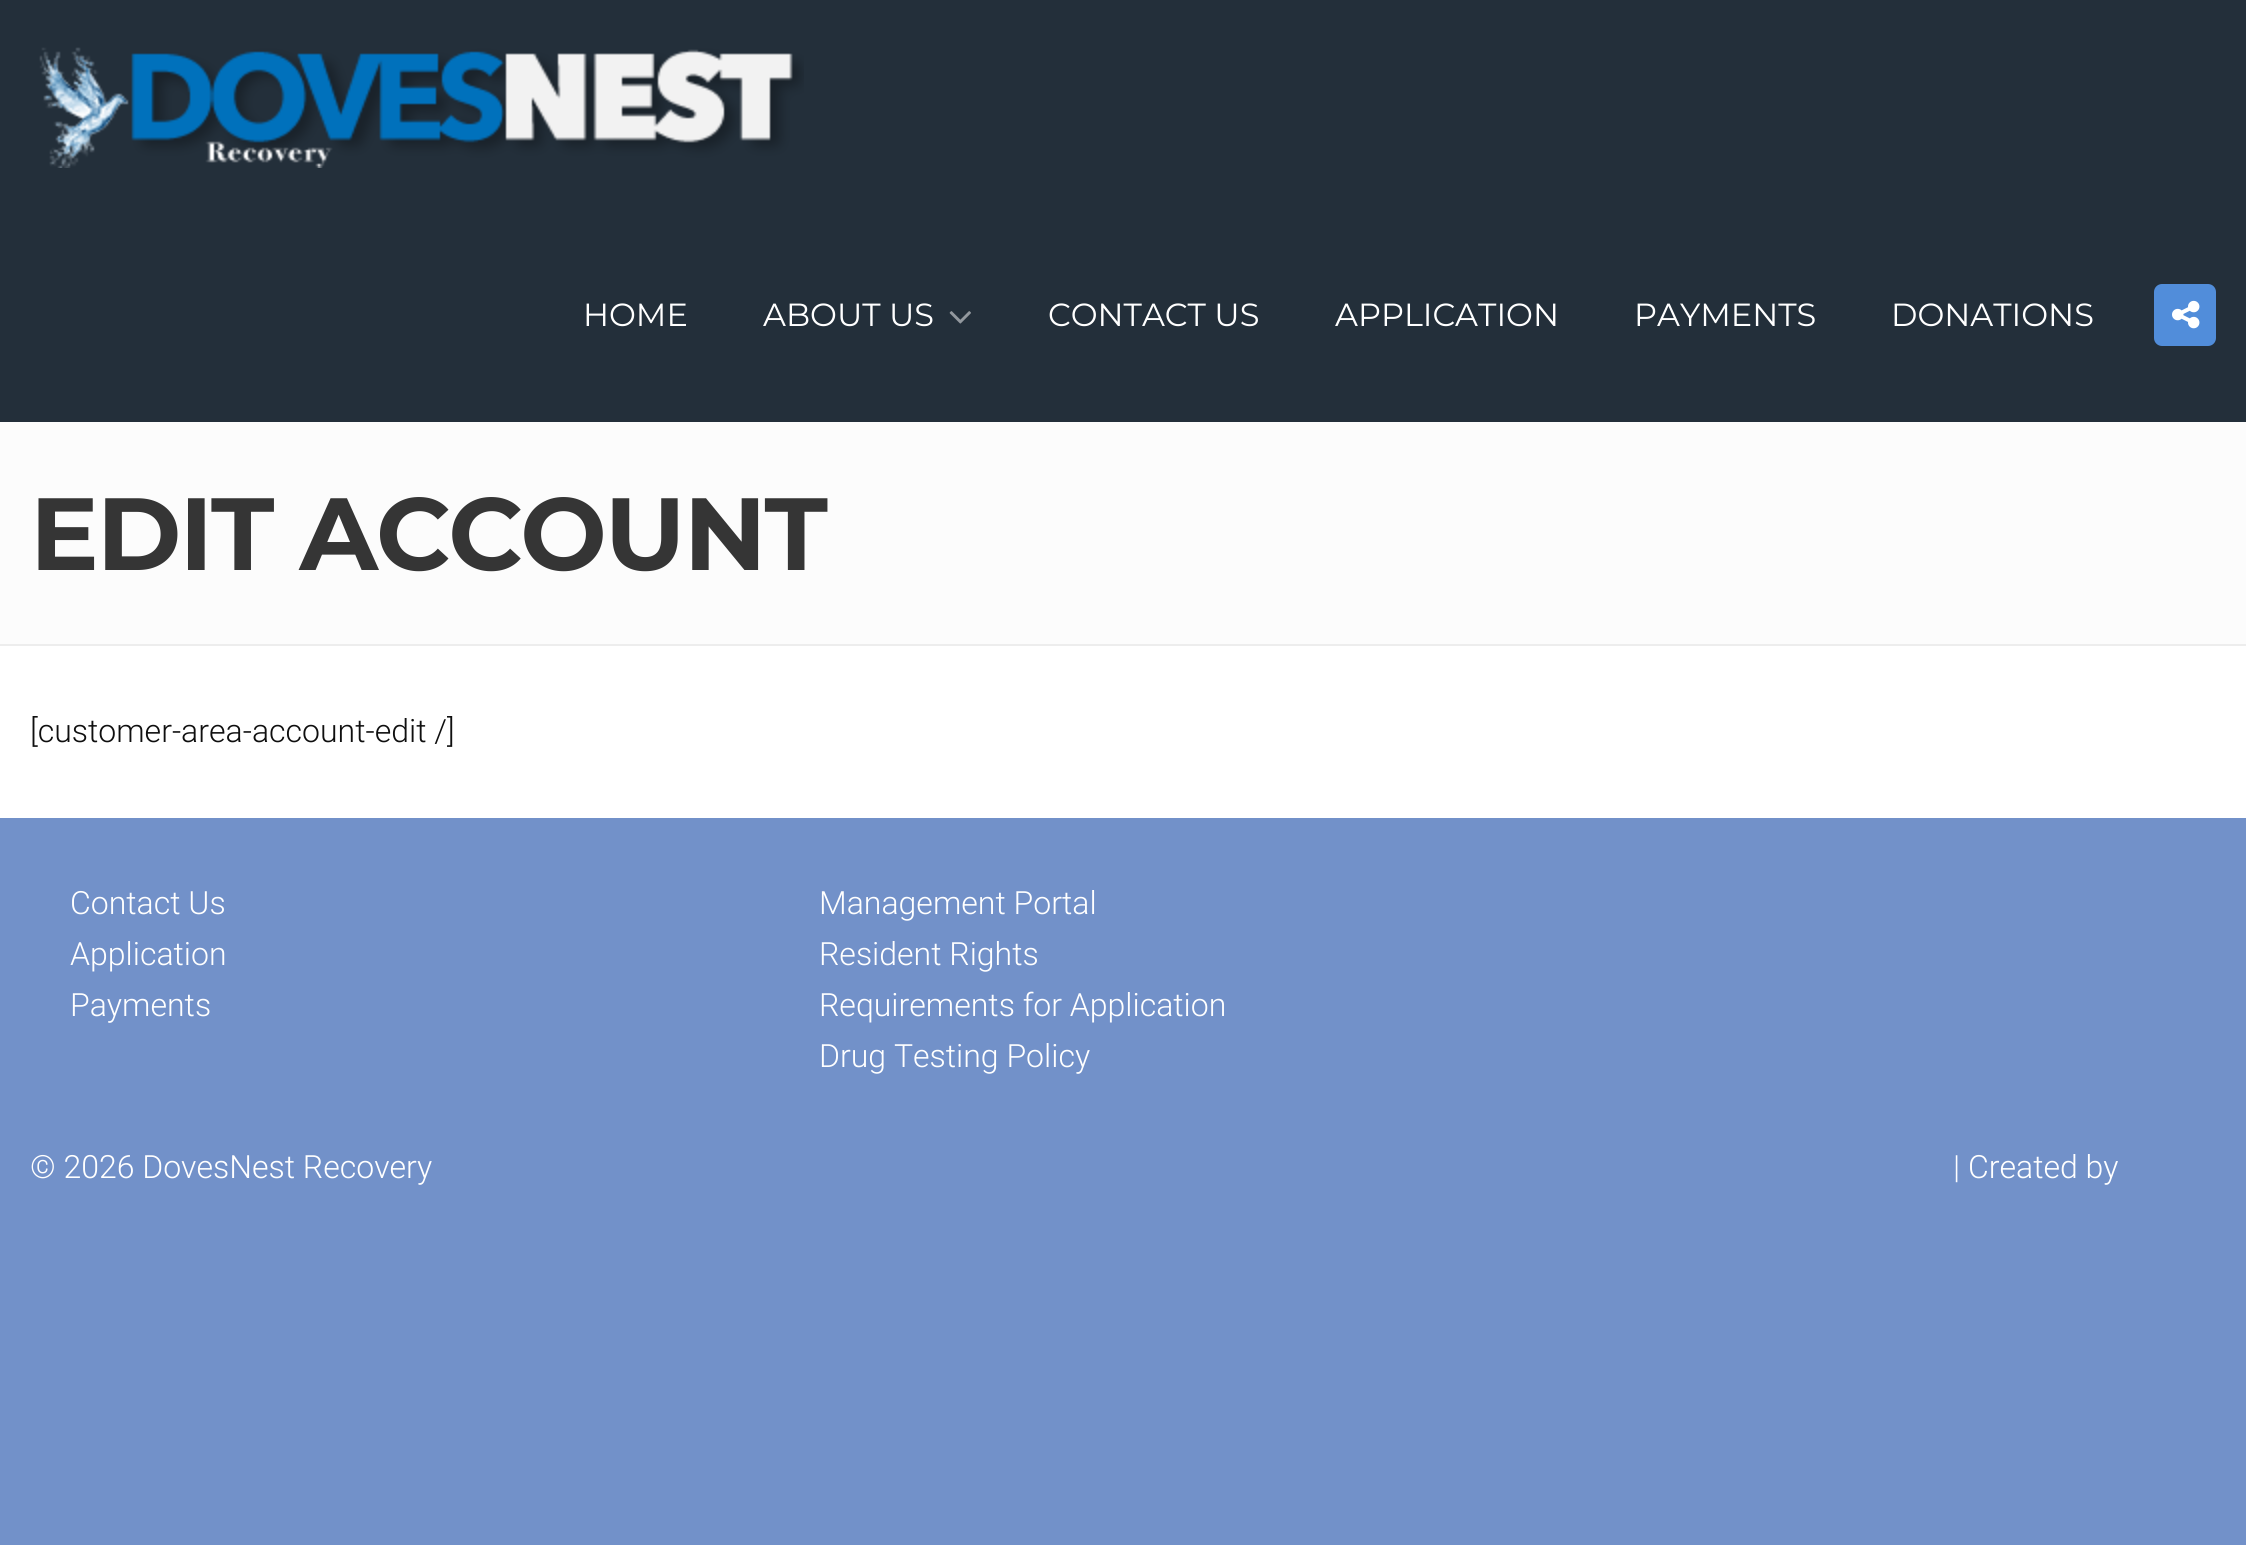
#include <cairo.h>
#include <math.h>
#include <stddef.h>

typedef struct { double x, y; const char *s; } line_t;

static void ink(cairo_t *ctx, unsigned color) {
    cairo_set_source_rgb(ctx, (color >> 16) / 255.0, (color >> 8 & 255) / 255.0, (color & 255) / 255.0);
}

static void write_spaced(cairo_t *ctx, double x, double y, const char *s, double letter, double word) {
    cairo_move_to(ctx, x, y);
    while (*s) {
        char ch[5] = {0};
        int n = 0;
        do ch[n++] = *s++; while ((*s & 0xC0) == 0x80);
        cairo_show_text(ctx, ch);
        cairo_rel_move_to(ctx, letter + word * (*ch == ' '), 0);
    }
}

static void round_path(cairo_t *ctx, double x, double y, double w, double h, double r) {
    cairo_new_sub_path(ctx);
    cairo_arc(ctx, x + w - r, y + h - r, r, 0, M_PI / 2);
    cairo_arc(ctx, x + r, y + h - r, r, M_PI / 2, M_PI);
    cairo_arc(ctx, x + r, y + r, r, M_PI, 1.5 * M_PI);
    cairo_arc(ctx, x + w - r, y + r, r, 1.5 * M_PI, 2 * M_PI);
    cairo_close_path(ctx);
}

static void paste(cairo_t *ctx, const char *path, double x, double y, double w, double h) {
    cairo_surface_t *image = cairo_image_surface_create_from_png(path);
    cairo_save(ctx);
    cairo_set_source_surface(ctx, image, x, y);
    cairo_rectangle(ctx, x, y, w, h);
    cairo_fill(ctx);
    cairo_restore(ctx);
    cairo_surface_destroy(image);
}

int main(void) {
    cairo_surface_t *surface = cairo_image_surface_create(CAIRO_FORMAT_RGB24, 2246, 1545);
    cairo_t *ctx = cairo_create(surface);
    cairo_font_options_t *options = cairo_font_options_create();
    cairo_font_options_set_hint_metrics(options, CAIRO_HINT_METRICS_OFF);
    cairo_font_options_set_hint_style(options, CAIRO_HINT_STYLE_NONE);
    cairo_set_font_options(ctx, options);
    cairo_set_miter_limit(ctx, 4);
    ink(ctx, 0xFFFFFF);
    cairo_paint(ctx);
    ink(ctx, 0x232F3A);
    cairo_rectangle(ctx, 0, 0, 2246, 422);
    cairo_fill(ctx);
    paste(ctx, "media/1.png", 39, 47, 765, 121);
    cairo_select_font_face(ctx, "Montserrat", CAIRO_FONT_SLANT_NORMAL, CAIRO_FONT_WEIGHT_NORMAL);
    cairo_set_font_size(ctx, 32);
    ink(ctx, 0xFFFFFF);
    cairo_move_to(ctx, 583, 326);
    cairo_show_text(ctx, "HOME");
    cairo_move_to(ctx, 763, 326);
    cairo_show_text(ctx, "ABOUT US");
    paste(ctx, "media/2.png", 949, 311, 22, 13);
    {
        static const line_t items[] = {
            {1048, 326, "CONTACT US"},
            {1335, 326, "APPLICATION"},
            {1634, 326, "PAYMENTS"},
            {1891, 326, "DONATIONS"},
        };
        for (size_t i = 0; i < sizeof items / sizeof *items; i++) {
            cairo_move_to(ctx, items[i].x, items[i].y);
            cairo_show_text(ctx, items[i].s);
        }
    }
    ink(ctx, 0x518DDA);
    round_path(ctx, 2154, 284, 62, 62, 8);
    cairo_fill(ctx);
    paste(ctx, "media/3.png", 2172, 300, 28, 29);
    ink(ctx, 0xFCFCFC);
    cairo_rectangle(ctx, 0, 422, 2246, 222);
    cairo_fill(ctx);
    ink(ctx, 0xEDEDED);
    cairo_rectangle(ctx, 0, 644, 2246, 2);
    cairo_fill(ctx);
    cairo_select_font_face(ctx, "Montserrat", CAIRO_FONT_SLANT_NORMAL, CAIRO_FONT_WEIGHT_BOLD);
    cairo_set_font_size(ctx, 102.5);
    ink(ctx, 0x353535);
    write_spaced(ctx, 30, 570, "EDIT ACCOUNT", -2, 0);
    cairo_select_font_face(ctx, "Roboto Light", CAIRO_FONT_SLANT_NORMAL, CAIRO_FONT_WEIGHT_NORMAL);
    cairo_set_font_size(ctx, 32);
    ink(ctx, 0x0F0F0F);
    cairo_move_to(ctx, 30, 742);
    cairo_show_text(ctx, "[customer-area-account-edit /]");
    ink(ctx, 0x7291C9);
    cairo_rectangle(ctx, 0, 818, 2246, 727);
    cairo_fill(ctx);
    ink(ctx, 0xFFFFFF);
    {
        static const line_t items[] = {
            {70, 914, "Contact Us"},
            {70, 965, "Application"},
            {70, 1016, "Payments"},
            {819, 914, "Management Portal"},
            {819, 965, "Resident Rights"},
            {819, 1016, "Requirements for Application"},
            {819, 1067, "Drug Testing Policy"},
            {30, 1178, "© 2026 DovesNest Recovery"},
            {1953, 1178, "| Created by"},
        };
        for (size_t i = 0; i < sizeof items / sizeof *items; i++) {
            cairo_move_to(ctx, items[i].x, items[i].y);
            cairo_show_text(ctx, items[i].s);
        }
    }
    cairo_surface_write_to_png(surface, "image.png");
    cairo_font_options_destroy(options);
    cairo_destroy(ctx);
    cairo_surface_destroy(surface);
    return 0;
}
